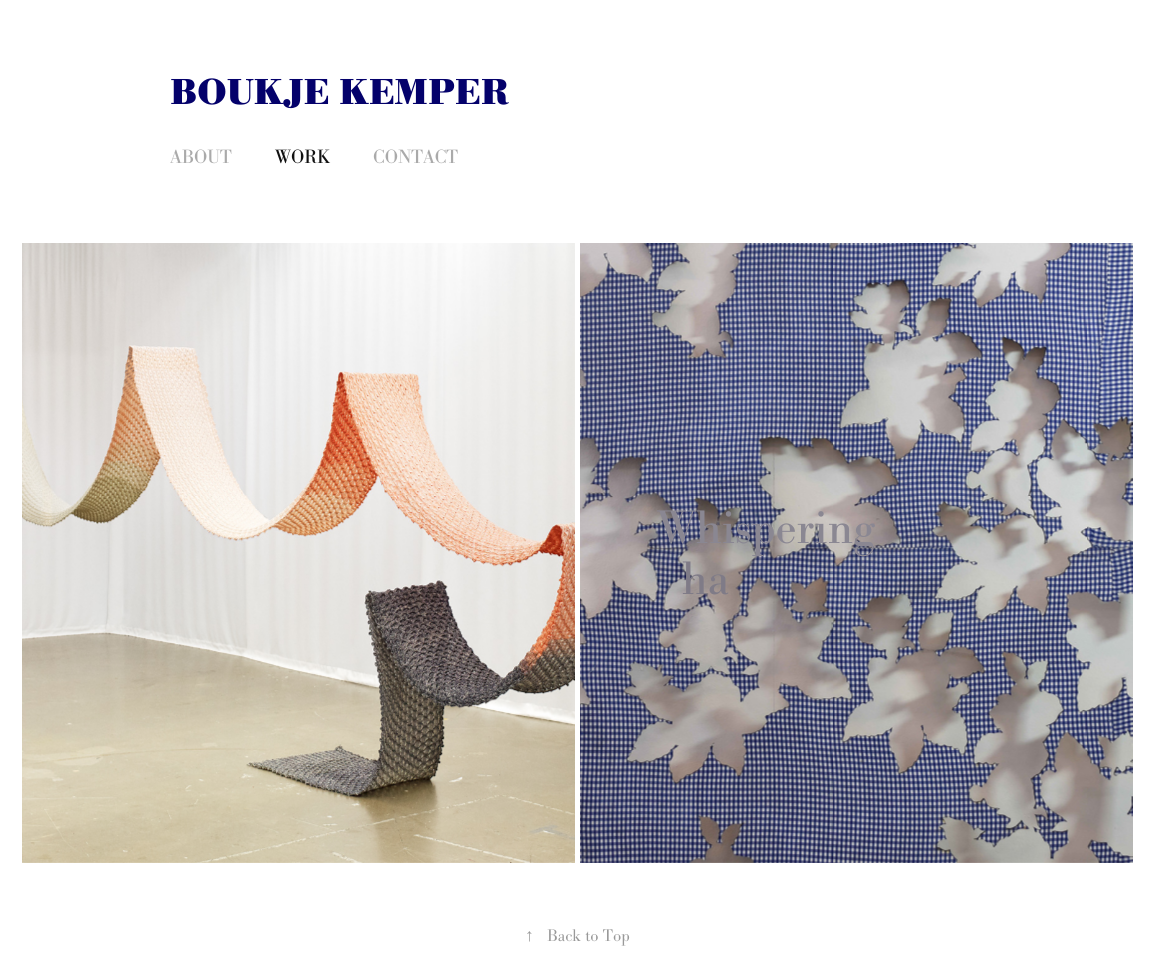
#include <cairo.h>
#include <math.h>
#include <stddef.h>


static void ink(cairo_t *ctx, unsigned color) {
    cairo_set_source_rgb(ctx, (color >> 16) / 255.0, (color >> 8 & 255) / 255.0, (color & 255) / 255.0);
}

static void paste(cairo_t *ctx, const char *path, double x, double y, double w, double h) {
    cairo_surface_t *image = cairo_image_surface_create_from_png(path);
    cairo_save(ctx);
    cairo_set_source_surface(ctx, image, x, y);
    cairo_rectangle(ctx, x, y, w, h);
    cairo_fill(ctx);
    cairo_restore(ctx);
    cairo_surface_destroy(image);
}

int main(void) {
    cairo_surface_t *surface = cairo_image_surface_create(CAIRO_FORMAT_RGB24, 1155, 974);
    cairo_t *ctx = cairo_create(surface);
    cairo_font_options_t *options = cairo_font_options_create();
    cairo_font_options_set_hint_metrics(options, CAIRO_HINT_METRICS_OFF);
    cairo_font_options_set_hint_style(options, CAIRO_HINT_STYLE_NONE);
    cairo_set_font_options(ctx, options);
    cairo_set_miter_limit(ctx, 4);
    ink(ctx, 0xFFFFFF);
    cairo_paint(ctx);
    cairo_select_font_face(ctx, "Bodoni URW", CAIRO_FONT_SLANT_NORMAL, CAIRO_FONT_WEIGHT_BOLD);
    cairo_set_font_size(ctx, 37.5);
    ink(ctx, 0x04016B);
    cairo_move_to(ctx, 170, 104);
    cairo_show_text(ctx, "BOUKJE KEMPER");
    cairo_select_font_face(ctx, "Bodoni URW", CAIRO_FONT_SLANT_NORMAL, CAIRO_FONT_WEIGHT_NORMAL);
    cairo_set_font_size(ctx, 20);
    ink(ctx, 0xAAAAAA);
    cairo_move_to(ctx, 170, 163);
    cairo_show_text(ctx, "ABOUT");
    ink(ctx, 0x111111);
    cairo_move_to(ctx, 275, 163);
    cairo_show_text(ctx, "WORK");
    ink(ctx, 0xAAAAAA);
    cairo_move_to(ctx, 373, 163);
    cairo_show_text(ctx, "CONTACT");
    paste(ctx, "media/1.png", 22, 243, 553, 620);
    paste(ctx, "media/2.png", 580, 243, 553, 620);
    cairo_set_font_size(ctx, 48.75);
    ink(ctx, 0x8A8792);
    cairo_move_to(ctx, 657, 543);
    cairo_show_text(ctx, "Whispering");
    ink(ctx, 0x7F7B87);
    cairo_move_to(ctx, 682, 594);
    cairo_show_text(ctx, "ha");
    cairo_select_font_face(ctx, "Liberation Serif", CAIRO_FONT_SLANT_NORMAL, CAIRO_FONT_WEIGHT_NORMAL);
    cairo_set_font_size(ctx, 17.5);
    ink(ctx, 0x999999);
    cairo_move_to(ctx, 525, 941);
    cairo_show_text(ctx, "↑");
    cairo_select_font_face(ctx, "Bodoni URW Light", CAIRO_FONT_SLANT_NORMAL, CAIRO_FONT_WEIGHT_NORMAL);
    cairo_move_to(ctx, 547, 941);
    cairo_show_text(ctx, "Back to Top");
    cairo_surface_write_to_png(surface, "image.png");
    cairo_font_options_destroy(options);
    cairo_destroy(ctx);
    cairo_surface_destroy(surface);
    return 0;
}
